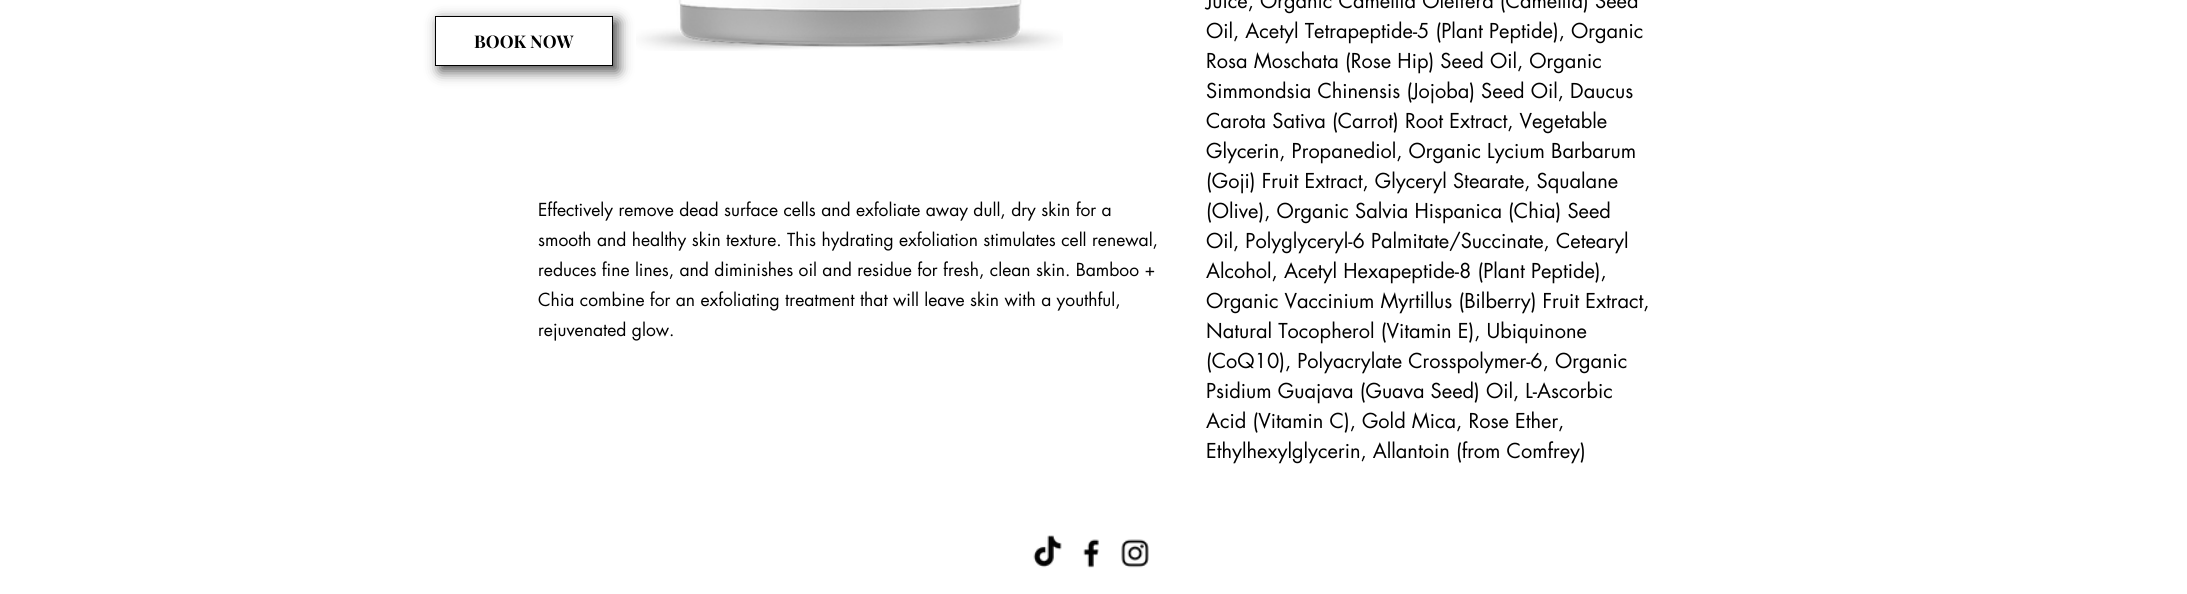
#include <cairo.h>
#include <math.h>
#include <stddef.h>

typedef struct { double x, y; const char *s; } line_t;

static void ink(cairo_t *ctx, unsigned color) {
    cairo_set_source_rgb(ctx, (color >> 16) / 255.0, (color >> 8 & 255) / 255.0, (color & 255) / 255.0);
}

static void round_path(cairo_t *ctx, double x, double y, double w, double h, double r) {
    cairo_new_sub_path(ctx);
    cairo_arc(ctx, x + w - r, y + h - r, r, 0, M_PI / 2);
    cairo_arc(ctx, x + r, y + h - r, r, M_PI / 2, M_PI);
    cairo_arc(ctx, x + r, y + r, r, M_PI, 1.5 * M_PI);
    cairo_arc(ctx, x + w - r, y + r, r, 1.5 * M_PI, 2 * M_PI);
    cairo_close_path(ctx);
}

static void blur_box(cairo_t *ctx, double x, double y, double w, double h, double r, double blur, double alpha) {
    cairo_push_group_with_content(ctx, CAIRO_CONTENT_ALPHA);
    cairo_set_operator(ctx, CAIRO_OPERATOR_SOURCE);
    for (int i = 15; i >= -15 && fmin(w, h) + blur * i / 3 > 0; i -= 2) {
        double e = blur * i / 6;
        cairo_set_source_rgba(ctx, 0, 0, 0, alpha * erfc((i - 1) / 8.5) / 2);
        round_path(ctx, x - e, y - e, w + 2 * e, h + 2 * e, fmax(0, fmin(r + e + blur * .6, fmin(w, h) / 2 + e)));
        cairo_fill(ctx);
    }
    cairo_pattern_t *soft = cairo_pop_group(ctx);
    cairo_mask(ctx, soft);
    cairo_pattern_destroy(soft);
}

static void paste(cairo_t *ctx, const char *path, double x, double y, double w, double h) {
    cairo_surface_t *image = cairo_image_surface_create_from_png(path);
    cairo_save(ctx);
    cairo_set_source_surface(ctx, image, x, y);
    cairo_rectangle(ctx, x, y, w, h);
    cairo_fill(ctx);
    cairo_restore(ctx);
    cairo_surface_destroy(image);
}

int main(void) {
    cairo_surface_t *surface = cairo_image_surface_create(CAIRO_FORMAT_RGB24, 2187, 594);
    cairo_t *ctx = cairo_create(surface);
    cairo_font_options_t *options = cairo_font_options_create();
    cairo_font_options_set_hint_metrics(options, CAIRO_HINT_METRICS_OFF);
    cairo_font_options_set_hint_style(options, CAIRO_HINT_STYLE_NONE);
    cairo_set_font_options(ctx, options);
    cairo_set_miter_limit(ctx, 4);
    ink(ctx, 0xFFFFFF);
    cairo_paint(ctx);
    paste(ctx, "media/1.png", 636, 0, 427, 51);
    cairo_save(ctx);
    cairo_set_fill_rule(ctx, CAIRO_FILL_RULE_EVEN_ODD);
    cairo_new_path(ctx);
    cairo_move_to(ctx, 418, 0);
    cairo_line_to(ctx, 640, 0);
    cairo_line_to(ctx, 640, 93);
    cairo_line_to(ctx, 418, 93);
    cairo_close_path(ctx);
    cairo_move_to(ctx, 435, 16);
    cairo_line_to(ctx, 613, 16);
    cairo_line_to(ctx, 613, 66);
    cairo_line_to(ctx, 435, 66);
    cairo_close_path(ctx);
    cairo_clip(ctx);
    ink(ctx, 0x000000);
    blur_box(ctx, 440, 21, 178, 50, 0, 7, 0.72);
    cairo_restore(ctx);
    cairo_rectangle(ctx, 435.5, 16.5, 177, 49);
    ink(ctx, 0x000000);
    cairo_set_line_width(ctx, 1);
    cairo_stroke(ctx);
    cairo_select_font_face(ctx, "Playfair Display", CAIRO_FONT_SLANT_NORMAL, CAIRO_FONT_WEIGHT_BOLD);
    cairo_set_font_size(ctx, 17.5);
    cairo_move_to(ctx, 474, 48);
    cairo_show_text(ctx, "BOOK NOW");
    cairo_select_font_face(ctx, "futura", CAIRO_FONT_SLANT_NORMAL, CAIRO_FONT_WEIGHT_NORMAL);
    {
        static const line_t items[] = {
            {538, 216, "Effectively remove dead surface cells and exfoliate away dull, dry skin for a"},
            {538, 246, "smooth and healthy skin texture. This hydrating exfoliation stimulates cell renewal,"},
            {538, 276, "reduces fine lines, and diminishes oil and residue for fresh, clean skin. Bamboo +"},
            {538, 306, "Chia combine for an exfoliating treatment that will leave skin with a youthful,"},
            {538, 336, "rejuvenated glow."},
        };
        for (size_t i = 0; i < sizeof items / sizeof *items; i++) {
            cairo_move_to(ctx, items[i].x, items[i].y);
            cairo_show_text(ctx, items[i].s);
        }
    }
    cairo_set_font_size(ctx, 20);
    {
        static const line_t items[] = {
            {1206, 8, "Juice, Organic Camellia Oleifera (Camellia) Seed"},
            {1206, 38, "Oil, Acetyl Tetrapeptide-5 (Plant Peptide), Organic"},
            {1206, 68, "Rosa Moschata (Rose Hip) Seed Oil, Organic"},
            {1206, 98, "Simmondsia Chinensis (Jojoba) Seed Oil, Daucus"},
            {1206, 128, "Carota Sativa (Carrot) Root Extract, Vegetable"},
            {1206, 158, "Glycerin, Propanediol, Organic Lycium Barbarum"},
            {1206, 188, "(Goji) Fruit Extract, Glyceryl Stearate, Squalane"},
            {1206, 218, "(Olive), Organic Salvia Hispanica (Chia) Seed"},
            {1206, 248, "Oil, Polyglyceryl-6 Palmitate/Succinate, Cetearyl"},
            {1206, 278, "Alcohol, Acetyl Hexapeptide-8 (Plant Peptide),"},
            {1206, 308, "Organic Vaccinium Myrtillus (Bilberry) Fruit Extract,"},
            {1206, 338, "Natural Tocopherol (Vitamin E), Ubiquinone"},
            {1206, 368, "(CoQ10), Polyacrylate Crosspolymer-6, Organic"},
            {1206, 398, "Psidium Guajava (Guava Seed) Oil, L-Ascorbic"},
            {1206, 428, "Acid (Vitamin C), Gold Mica, Rose Ether,"},
            {1206, 458, "Ethylhexylglycerin, Allantoin (from Comfrey)"},
        };
        for (size_t i = 0; i < sizeof items / sizeof *items; i++) {
            cairo_move_to(ctx, items[i].x, items[i].y);
            cairo_show_text(ctx, items[i].s);
        }
    }
    paste(ctx, "media/2.png", 1033, 535, 29, 33);
    paste(ctx, "media/3.png", 1083, 539, 16, 29);
    paste(ctx, "media/4.png", 1121, 539, 28, 29);
    cairo_surface_write_to_png(surface, "image.png");
    cairo_font_options_destroy(options);
    cairo_destroy(ctx);
    cairo_surface_destroy(surface);
    return 0;
}
